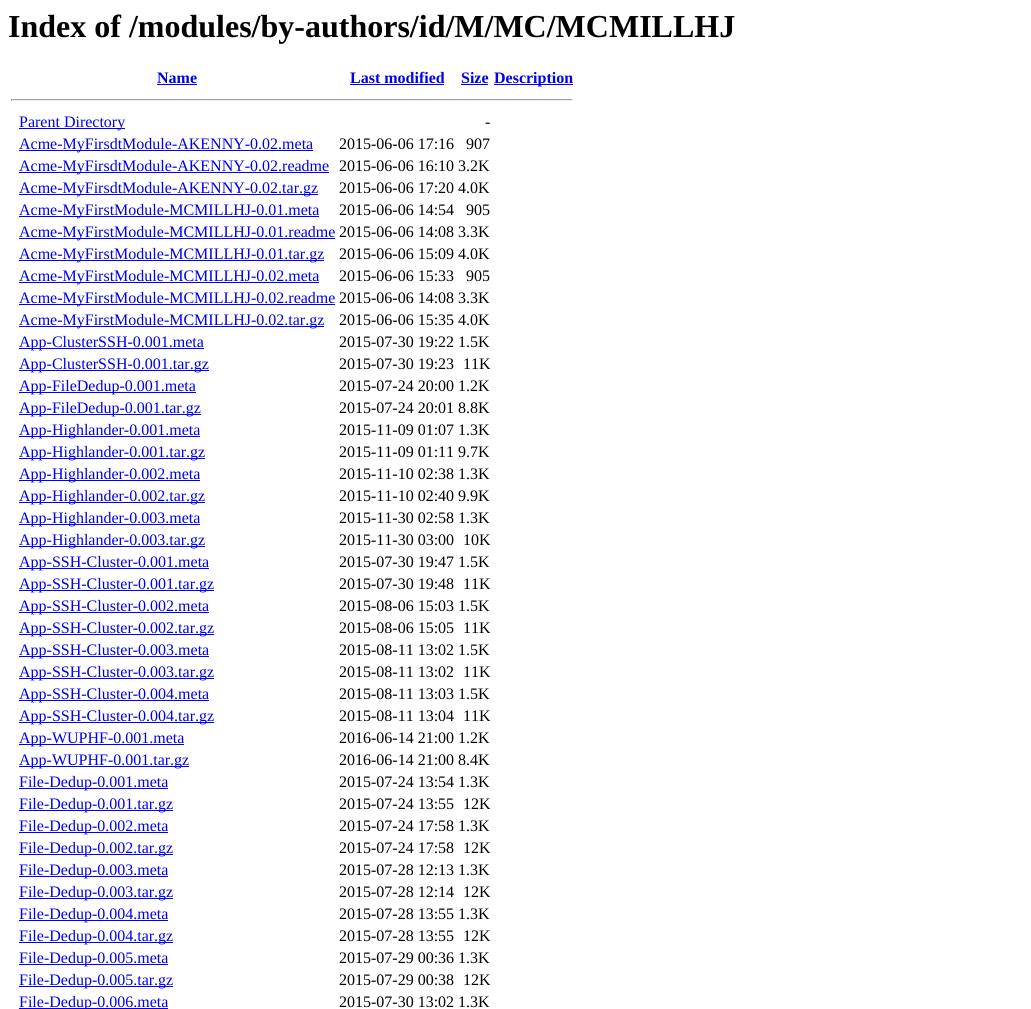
#include <cairo.h>
#include <math.h>
#include <stddef.h>

typedef struct { double x, y, w, h; unsigned color; } box_t;

static void ink(cairo_t *ctx, unsigned color) {
    cairo_set_source_rgb(ctx, (color >> 16) / 255.0, (color >> 8 & 255) / 255.0, (color & 255) / 255.0);
}

int main(void) {
    cairo_surface_t *surface = cairo_image_surface_create(CAIRO_FORMAT_RGB24, 1031, 1009);
    cairo_t *ctx = cairo_create(surface);
    cairo_font_options_t *options = cairo_font_options_create();
    cairo_font_options_set_hint_metrics(options, CAIRO_HINT_METRICS_OFF);
    cairo_font_options_set_hint_style(options, CAIRO_HINT_STYLE_NONE);
    cairo_set_font_options(ctx, options);
    cairo_set_miter_limit(ctx, 4);
    ink(ctx, 0xFFFFFF);
    cairo_paint(ctx);
    cairo_select_font_face(ctx, "Liberation Serif", CAIRO_FONT_SLANT_NORMAL, CAIRO_FONT_WEIGHT_BOLD);
    cairo_set_font_size(ctx, 32);
    ink(ctx, 0x000000);
    cairo_move_to(ctx, 8, 37);
    cairo_show_text(ctx, "Index of /modules/by-authors/id/M/MC/MCMILLHJ");
    cairo_set_font_size(ctx, 16);
    ink(ctx, 0x0000EE);
    cairo_move_to(ctx, 157, 83);
    cairo_show_text(ctx, "Name");
    cairo_rectangle(ctx, 157, 84, 40, 1);
    cairo_fill(ctx);
    cairo_move_to(ctx, 350, 83);
    cairo_show_text(ctx, "Last modified");
    cairo_rectangle(ctx, 350, 84, 94, 1);
    cairo_fill(ctx);
    cairo_move_to(ctx, 461, 83);
    cairo_show_text(ctx, "Size");
    cairo_rectangle(ctx, 461, 84, 27, 1);
    cairo_fill(ctx);
    cairo_rectangle(ctx, 494, 84, 79, 1);
    cairo_fill(ctx);
    cairo_move_to(ctx, 494, 83);
    cairo_show_text(ctx, "Description");
    {
        static const box_t items[] = {
            {11, 99, 562, 1, 0x9F9F9F},
            {572, 99, 1, 2, 0xEEEEEE},
            {11, 100, 562, 1, 0xEEEEEE},
            {11, 99, 1, 2, 0x9F9F9F},
            {19, 128, 106, 1, 0x0000EE},
        };
        for (size_t i = 0; i < sizeof items / sizeof *items; i++) {
            ink(ctx, items[i].color);
            cairo_rectangle(ctx, items[i].x, items[i].y, items[i].w, items[i].h);
            cairo_fill(ctx);
        }
    }
    cairo_select_font_face(ctx, "Liberation Serif", CAIRO_FONT_SLANT_NORMAL, CAIRO_FONT_WEIGHT_NORMAL);
    cairo_move_to(ctx, 19, 127);
    cairo_show_text(ctx, "Parent Directory");
    ink(ctx, 0x000000);
    cairo_move_to(ctx, 485, 127);
    cairo_show_text(ctx, "-");
    ink(ctx, 0x0000EE);
    cairo_rectangle(ctx, 19, 150, 294, 1);
    cairo_fill(ctx);
    cairo_move_to(ctx, 19, 149);
    cairo_show_text(ctx, "Acme-MyFirsdtModule-AKENNY-0.02.meta");
    ink(ctx, 0x000000);
    cairo_move_to(ctx, 339, 149);
    cairo_show_text(ctx, "2015-06-06 17:16");
    cairo_move_to(ctx, 466, 149);
    cairo_show_text(ctx, "907");
    ink(ctx, 0x0000EE);
    cairo_rectangle(ctx, 19, 172, 310, 1);
    cairo_fill(ctx);
    cairo_move_to(ctx, 19, 171);
    cairo_show_text(ctx, "Acme-MyFirsdtModule-AKENNY-0.02.readme");
    ink(ctx, 0x000000);
    cairo_move_to(ctx, 339, 171);
    cairo_show_text(ctx, "2015-06-06 16:10 3.2K");
    ink(ctx, 0x0000EE);
    cairo_rectangle(ctx, 19, 194, 299, 1);
    cairo_fill(ctx);
    cairo_move_to(ctx, 19, 193);
    cairo_show_text(ctx, "Acme-MyFirsdtModule-AKENNY-0.02.tar.gz");
    ink(ctx, 0x000000);
    cairo_move_to(ctx, 339, 193);
    cairo_show_text(ctx, "2015-06-06 17:20 4.0K");
    ink(ctx, 0x0000EE);
    cairo_rectangle(ctx, 19, 216, 300, 1);
    cairo_fill(ctx);
    cairo_move_to(ctx, 19, 215);
    cairo_show_text(ctx, "Acme-MyFirstModule-MCMILLHJ-0.01.meta");
    ink(ctx, 0x000000);
    cairo_move_to(ctx, 339, 215);
    cairo_show_text(ctx, "2015-06-06 14:54");
    cairo_move_to(ctx, 466, 215);
    cairo_show_text(ctx, "905");
    ink(ctx, 0x0000EE);
    cairo_rectangle(ctx, 19, 238, 316, 1);
    cairo_fill(ctx);
    cairo_move_to(ctx, 19, 237);
    cairo_show_text(ctx, "Acme-MyFirstModule-MCMILLHJ-0.01.readme");
    ink(ctx, 0x000000);
    cairo_move_to(ctx, 339, 237);
    cairo_show_text(ctx, "2015-06-06 14:08 3.3K");
    ink(ctx, 0x0000EE);
    cairo_rectangle(ctx, 19, 260, 305, 1);
    cairo_fill(ctx);
    cairo_move_to(ctx, 19, 259);
    cairo_show_text(ctx, "Acme-MyFirstModule-MCMILLHJ-0.01.tar.gz");
    ink(ctx, 0x000000);
    cairo_move_to(ctx, 339, 259);
    cairo_show_text(ctx, "2015-06-06 15:09 4.0K");
    ink(ctx, 0x0000EE);
    cairo_rectangle(ctx, 19, 282, 300, 1);
    cairo_fill(ctx);
    cairo_move_to(ctx, 19, 281);
    cairo_show_text(ctx, "Acme-MyFirstModule-MCMILLHJ-0.02.meta");
    ink(ctx, 0x000000);
    cairo_move_to(ctx, 339, 281);
    cairo_show_text(ctx, "2015-06-06 15:33");
    cairo_move_to(ctx, 466, 281);
    cairo_show_text(ctx, "905");
    ink(ctx, 0x0000EE);
    cairo_rectangle(ctx, 19, 304, 316, 1);
    cairo_fill(ctx);
    cairo_move_to(ctx, 19, 303);
    cairo_show_text(ctx, "Acme-MyFirstModule-MCMILLHJ-0.02.readme");
    ink(ctx, 0x000000);
    cairo_move_to(ctx, 339, 303);
    cairo_show_text(ctx, "2015-06-06 14:08 3.3K");
    ink(ctx, 0x0000EE);
    cairo_rectangle(ctx, 19, 326, 305, 1);
    cairo_fill(ctx);
    cairo_move_to(ctx, 19, 325);
    cairo_show_text(ctx, "Acme-MyFirstModule-MCMILLHJ-0.02.tar.gz");
    ink(ctx, 0x000000);
    cairo_move_to(ctx, 339, 325);
    cairo_show_text(ctx, "2015-06-06 15:35 4.0K");
    ink(ctx, 0x0000EE);
    cairo_rectangle(ctx, 19, 348, 185, 1);
    cairo_fill(ctx);
    cairo_move_to(ctx, 19, 347);
    cairo_show_text(ctx, "App-ClusterSSH-0.001.meta");
    ink(ctx, 0x000000);
    cairo_move_to(ctx, 339, 347);
    cairo_show_text(ctx, "2015-07-30 19:22 1.5K");
    ink(ctx, 0x0000EE);
    cairo_rectangle(ctx, 19, 370, 190, 1);
    cairo_fill(ctx);
    cairo_move_to(ctx, 19, 369);
    cairo_show_text(ctx, "App-ClusterSSH-0.001.tar.gz");
    ink(ctx, 0x000000);
    cairo_move_to(ctx, 339, 369);
    cairo_show_text(ctx, "2015-07-30 19:23");
    cairo_move_to(ctx, 463, 369);
    cairo_show_text(ctx, "11K");
    ink(ctx, 0x0000EE);
    cairo_rectangle(ctx, 19, 392, 177, 1);
    cairo_fill(ctx);
    cairo_move_to(ctx, 19, 391);
    cairo_show_text(ctx, "App-FileDedup-0.001.meta");
    ink(ctx, 0x000000);
    cairo_move_to(ctx, 339, 391);
    cairo_show_text(ctx, "2015-07-24 20:00 1.2K");
    ink(ctx, 0x0000EE);
    cairo_rectangle(ctx, 19, 414, 182, 1);
    cairo_fill(ctx);
    cairo_move_to(ctx, 19, 413);
    cairo_show_text(ctx, "App-FileDedup-0.001.tar.gz");
    ink(ctx, 0x000000);
    cairo_move_to(ctx, 339, 413);
    cairo_show_text(ctx, "2015-07-24 20:01 8.8K");
    ink(ctx, 0x0000EE);
    cairo_rectangle(ctx, 19, 436, 181, 1);
    cairo_fill(ctx);
    cairo_move_to(ctx, 19, 435);
    cairo_show_text(ctx, "App-Highlander-0.001.meta");
    ink(ctx, 0x000000);
    cairo_move_to(ctx, 339, 435);
    cairo_show_text(ctx, "2015-11-09 01:07 1.3K");
    ink(ctx, 0x0000EE);
    cairo_rectangle(ctx, 19, 458, 186, 1);
    cairo_fill(ctx);
    cairo_move_to(ctx, 19, 457);
    cairo_show_text(ctx, "App-Highlander-0.001.tar.gz");
    ink(ctx, 0x000000);
    cairo_move_to(ctx, 339, 457);
    cairo_show_text(ctx, "2015-11-09 01:11 9.7K");
    ink(ctx, 0x0000EE);
    cairo_rectangle(ctx, 19, 480, 181, 1);
    cairo_fill(ctx);
    cairo_move_to(ctx, 19, 479);
    cairo_show_text(ctx, "App-Highlander-0.002.meta");
    ink(ctx, 0x000000);
    cairo_move_to(ctx, 339, 479);
    cairo_show_text(ctx, "2015-11-10 02:38 1.3K");
    ink(ctx, 0x0000EE);
    cairo_rectangle(ctx, 19, 502, 186, 1);
    cairo_fill(ctx);
    cairo_move_to(ctx, 19, 501);
    cairo_show_text(ctx, "App-Highlander-0.002.tar.gz");
    ink(ctx, 0x000000);
    cairo_move_to(ctx, 339, 501);
    cairo_show_text(ctx, "2015-11-10 02:40 9.9K");
    ink(ctx, 0x0000EE);
    cairo_rectangle(ctx, 19, 524, 181, 1);
    cairo_fill(ctx);
    cairo_move_to(ctx, 19, 523);
    cairo_show_text(ctx, "App-Highlander-0.003.meta");
    ink(ctx, 0x000000);
    cairo_move_to(ctx, 339, 523);
    cairo_show_text(ctx, "2015-11-30 02:58 1.3K");
    ink(ctx, 0x0000EE);
    cairo_rectangle(ctx, 19, 546, 186, 1);
    cairo_fill(ctx);
    cairo_move_to(ctx, 19, 545);
    cairo_show_text(ctx, "App-Highlander-0.003.tar.gz");
    ink(ctx, 0x000000);
    cairo_move_to(ctx, 339, 545);
    cairo_show_text(ctx, "2015-11-30 03:00");
    cairo_move_to(ctx, 463, 545);
    cairo_show_text(ctx, "10K");
    ink(ctx, 0x0000EE);
    cairo_rectangle(ctx, 19, 568, 190, 1);
    cairo_fill(ctx);
    cairo_move_to(ctx, 19, 567);
    cairo_show_text(ctx, "App-SSH-Cluster-0.001.meta");
    ink(ctx, 0x000000);
    cairo_move_to(ctx, 339, 567);
    cairo_show_text(ctx, "2015-07-30 19:47 1.5K");
    ink(ctx, 0x0000EE);
    cairo_rectangle(ctx, 19, 590, 195, 1);
    cairo_fill(ctx);
    cairo_move_to(ctx, 19, 589);
    cairo_show_text(ctx, "App-SSH-Cluster-0.001.tar.gz");
    ink(ctx, 0x000000);
    cairo_move_to(ctx, 339, 589);
    cairo_show_text(ctx, "2015-07-30 19:48");
    cairo_move_to(ctx, 463, 589);
    cairo_show_text(ctx, "11K");
    ink(ctx, 0x0000EE);
    cairo_rectangle(ctx, 19, 612, 190, 1);
    cairo_fill(ctx);
    cairo_move_to(ctx, 19, 611);
    cairo_show_text(ctx, "App-SSH-Cluster-0.002.meta");
    ink(ctx, 0x000000);
    cairo_move_to(ctx, 339, 611);
    cairo_show_text(ctx, "2015-08-06 15:03 1.5K");
    ink(ctx, 0x0000EE);
    cairo_rectangle(ctx, 19, 634, 195, 1);
    cairo_fill(ctx);
    cairo_move_to(ctx, 19, 633);
    cairo_show_text(ctx, "App-SSH-Cluster-0.002.tar.gz");
    ink(ctx, 0x000000);
    cairo_move_to(ctx, 339, 633);
    cairo_show_text(ctx, "2015-08-06 15:05");
    cairo_move_to(ctx, 463, 633);
    cairo_show_text(ctx, "11K");
    ink(ctx, 0x0000EE);
    cairo_rectangle(ctx, 19, 656, 190, 1);
    cairo_fill(ctx);
    cairo_move_to(ctx, 19, 655);
    cairo_show_text(ctx, "App-SSH-Cluster-0.003.meta");
    ink(ctx, 0x000000);
    cairo_move_to(ctx, 339, 655);
    cairo_show_text(ctx, "2015-08-11 13:02 1.5K");
    ink(ctx, 0x0000EE);
    cairo_rectangle(ctx, 19, 678, 195, 1);
    cairo_fill(ctx);
    cairo_move_to(ctx, 19, 677);
    cairo_show_text(ctx, "App-SSH-Cluster-0.003.tar.gz");
    ink(ctx, 0x000000);
    cairo_move_to(ctx, 339, 677);
    cairo_show_text(ctx, "2015-08-11 13:02");
    cairo_move_to(ctx, 463, 677);
    cairo_show_text(ctx, "11K");
    ink(ctx, 0x0000EE);
    cairo_rectangle(ctx, 19, 700, 190, 1);
    cairo_fill(ctx);
    cairo_move_to(ctx, 19, 699);
    cairo_show_text(ctx, "App-SSH-Cluster-0.004.meta");
    ink(ctx, 0x000000);
    cairo_move_to(ctx, 339, 699);
    cairo_show_text(ctx, "2015-08-11 13:03 1.5K");
    ink(ctx, 0x0000EE);
    cairo_rectangle(ctx, 19, 722, 195, 1);
    cairo_fill(ctx);
    cairo_move_to(ctx, 19, 721);
    cairo_show_text(ctx, "App-SSH-Cluster-0.004.tar.gz");
    ink(ctx, 0x000000);
    cairo_move_to(ctx, 339, 721);
    cairo_show_text(ctx, "2015-08-11 13:04");
    cairo_move_to(ctx, 463, 721);
    cairo_show_text(ctx, "11K");
    ink(ctx, 0x0000EE);
    cairo_rectangle(ctx, 19, 744, 165, 1);
    cairo_fill(ctx);
    cairo_move_to(ctx, 19, 743);
    cairo_show_text(ctx, "App-WUPHF-0.001.meta");
    ink(ctx, 0x000000);
    cairo_move_to(ctx, 339, 743);
    cairo_show_text(ctx, "2016-06-14 21:00 1.2K");
    ink(ctx, 0x0000EE);
    cairo_rectangle(ctx, 19, 766, 170, 1);
    cairo_fill(ctx);
    cairo_move_to(ctx, 19, 765);
    cairo_show_text(ctx, "App-WUPHF-0.001.tar.gz");
    ink(ctx, 0x000000);
    cairo_move_to(ctx, 339, 765);
    cairo_show_text(ctx, "2016-06-14 21:00 8.4K");
    ink(ctx, 0x0000EE);
    cairo_rectangle(ctx, 19, 788, 149, 1);
    cairo_fill(ctx);
    cairo_move_to(ctx, 19, 787);
    cairo_show_text(ctx, "File-Dedup-0.001.meta");
    ink(ctx, 0x000000);
    cairo_move_to(ctx, 339, 787);
    cairo_show_text(ctx, "2015-07-24 13:54 1.3K");
    ink(ctx, 0x0000EE);
    cairo_rectangle(ctx, 19, 810, 154, 1);
    cairo_fill(ctx);
    cairo_move_to(ctx, 19, 809);
    cairo_show_text(ctx, "File-Dedup-0.001.tar.gz");
    ink(ctx, 0x000000);
    cairo_move_to(ctx, 339, 809);
    cairo_show_text(ctx, "2015-07-24 13:55");
    cairo_move_to(ctx, 463, 809);
    cairo_show_text(ctx, "12K");
    ink(ctx, 0x0000EE);
    cairo_rectangle(ctx, 19, 832, 149, 1);
    cairo_fill(ctx);
    cairo_move_to(ctx, 19, 831);
    cairo_show_text(ctx, "File-Dedup-0.002.meta");
    ink(ctx, 0x000000);
    cairo_move_to(ctx, 339, 831);
    cairo_show_text(ctx, "2015-07-24 17:58 1.3K");
    ink(ctx, 0x0000EE);
    cairo_rectangle(ctx, 19, 854, 154, 1);
    cairo_fill(ctx);
    cairo_move_to(ctx, 19, 853);
    cairo_show_text(ctx, "File-Dedup-0.002.tar.gz");
    ink(ctx, 0x000000);
    cairo_move_to(ctx, 339, 853);
    cairo_show_text(ctx, "2015-07-24 17:58");
    cairo_move_to(ctx, 463, 853);
    cairo_show_text(ctx, "12K");
    ink(ctx, 0x0000EE);
    cairo_rectangle(ctx, 19, 876, 149, 1);
    cairo_fill(ctx);
    cairo_move_to(ctx, 19, 875);
    cairo_show_text(ctx, "File-Dedup-0.003.meta");
    ink(ctx, 0x000000);
    cairo_move_to(ctx, 339, 875);
    cairo_show_text(ctx, "2015-07-28 12:13 1.3K");
    ink(ctx, 0x0000EE);
    cairo_rectangle(ctx, 19, 898, 154, 1);
    cairo_fill(ctx);
    cairo_move_to(ctx, 19, 897);
    cairo_show_text(ctx, "File-Dedup-0.003.tar.gz");
    ink(ctx, 0x000000);
    cairo_move_to(ctx, 339, 897);
    cairo_show_text(ctx, "2015-07-28 12:14");
    cairo_move_to(ctx, 463, 897);
    cairo_show_text(ctx, "12K");
    ink(ctx, 0x0000EE);
    cairo_rectangle(ctx, 19, 920, 149, 1);
    cairo_fill(ctx);
    cairo_move_to(ctx, 19, 919);
    cairo_show_text(ctx, "File-Dedup-0.004.meta");
    ink(ctx, 0x000000);
    cairo_move_to(ctx, 339, 919);
    cairo_show_text(ctx, "2015-07-28 13:55 1.3K");
    ink(ctx, 0x0000EE);
    cairo_rectangle(ctx, 19, 942, 154, 1);
    cairo_fill(ctx);
    cairo_move_to(ctx, 19, 941);
    cairo_show_text(ctx, "File-Dedup-0.004.tar.gz");
    ink(ctx, 0x000000);
    cairo_move_to(ctx, 339, 941);
    cairo_show_text(ctx, "2015-07-28 13:55");
    cairo_move_to(ctx, 463, 941);
    cairo_show_text(ctx, "12K");
    ink(ctx, 0x0000EE);
    cairo_rectangle(ctx, 19, 964, 149, 1);
    cairo_fill(ctx);
    cairo_move_to(ctx, 19, 963);
    cairo_show_text(ctx, "File-Dedup-0.005.meta");
    ink(ctx, 0x000000);
    cairo_move_to(ctx, 339, 963);
    cairo_show_text(ctx, "2015-07-29 00:36 1.3K");
    ink(ctx, 0x0000EE);
    cairo_rectangle(ctx, 19, 986, 154, 1);
    cairo_fill(ctx);
    cairo_move_to(ctx, 19, 985);
    cairo_show_text(ctx, "File-Dedup-0.005.tar.gz");
    ink(ctx, 0x000000);
    cairo_move_to(ctx, 339, 985);
    cairo_show_text(ctx, "2015-07-29 00:38");
    cairo_move_to(ctx, 463, 985);
    cairo_show_text(ctx, "12K");
    ink(ctx, 0x0000EE);
    cairo_rectangle(ctx, 19, 1008, 149, 1);
    cairo_fill(ctx);
    cairo_move_to(ctx, 19, 1007);
    cairo_show_text(ctx, "File-Dedup-0.006.meta");
    ink(ctx, 0x000000);
    cairo_move_to(ctx, 339, 1007);
    cairo_show_text(ctx, "2015-07-30 13:02 1.3K");
    cairo_surface_write_to_png(surface, "image.png");
    cairo_font_options_destroy(options);
    cairo_destroy(ctx);
    cairo_surface_destroy(surface);
    return 0;
}
